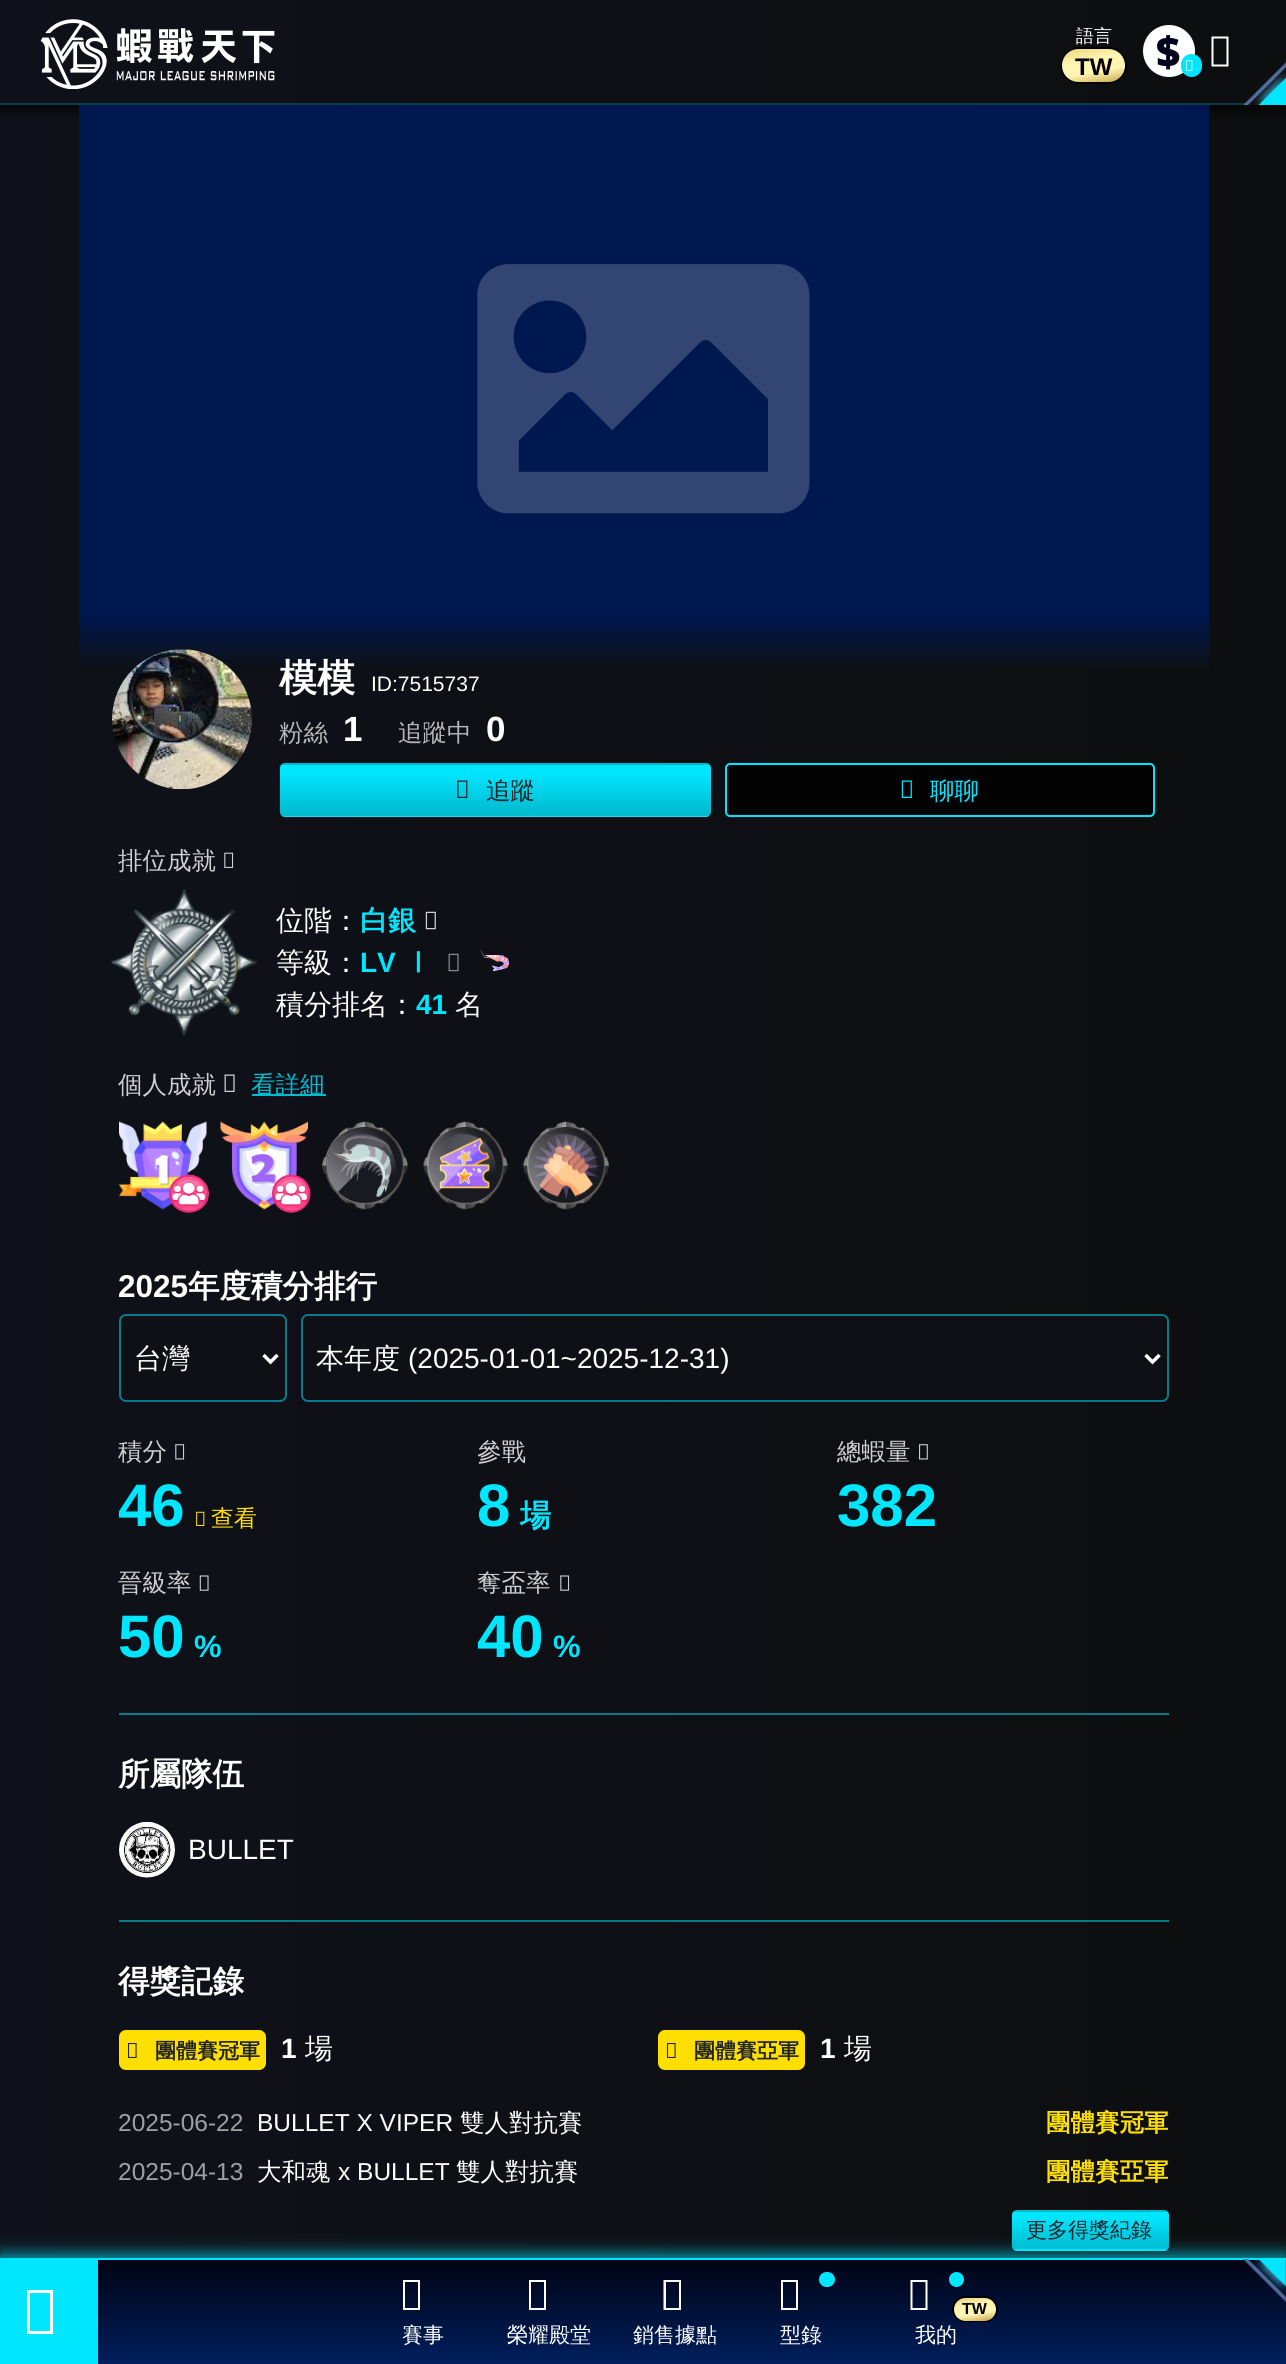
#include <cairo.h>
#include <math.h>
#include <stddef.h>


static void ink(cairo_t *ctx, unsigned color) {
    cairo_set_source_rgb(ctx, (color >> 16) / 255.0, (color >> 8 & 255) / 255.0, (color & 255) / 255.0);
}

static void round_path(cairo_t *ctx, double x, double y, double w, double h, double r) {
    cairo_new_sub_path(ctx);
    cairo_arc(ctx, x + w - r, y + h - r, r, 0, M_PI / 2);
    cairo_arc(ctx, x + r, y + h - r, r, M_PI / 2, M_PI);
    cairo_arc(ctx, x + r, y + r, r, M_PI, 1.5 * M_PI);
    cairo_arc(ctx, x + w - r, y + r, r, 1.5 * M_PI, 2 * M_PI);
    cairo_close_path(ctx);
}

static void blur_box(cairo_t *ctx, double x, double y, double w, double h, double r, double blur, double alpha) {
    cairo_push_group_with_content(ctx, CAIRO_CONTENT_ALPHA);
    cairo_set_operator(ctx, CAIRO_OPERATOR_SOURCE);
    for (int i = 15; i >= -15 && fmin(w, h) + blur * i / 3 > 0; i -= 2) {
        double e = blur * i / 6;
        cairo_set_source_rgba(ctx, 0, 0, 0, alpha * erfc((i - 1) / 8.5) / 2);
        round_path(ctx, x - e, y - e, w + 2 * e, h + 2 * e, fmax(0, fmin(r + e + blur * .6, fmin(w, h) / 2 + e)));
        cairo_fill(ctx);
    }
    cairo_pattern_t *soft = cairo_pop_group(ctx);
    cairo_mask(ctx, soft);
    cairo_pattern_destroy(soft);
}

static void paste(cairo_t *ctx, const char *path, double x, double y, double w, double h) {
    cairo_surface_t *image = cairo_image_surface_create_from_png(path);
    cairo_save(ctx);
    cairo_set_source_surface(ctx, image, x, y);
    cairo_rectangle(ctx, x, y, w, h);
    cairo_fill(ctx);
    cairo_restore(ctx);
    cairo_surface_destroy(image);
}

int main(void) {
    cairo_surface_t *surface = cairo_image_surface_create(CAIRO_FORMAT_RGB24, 1286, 2364);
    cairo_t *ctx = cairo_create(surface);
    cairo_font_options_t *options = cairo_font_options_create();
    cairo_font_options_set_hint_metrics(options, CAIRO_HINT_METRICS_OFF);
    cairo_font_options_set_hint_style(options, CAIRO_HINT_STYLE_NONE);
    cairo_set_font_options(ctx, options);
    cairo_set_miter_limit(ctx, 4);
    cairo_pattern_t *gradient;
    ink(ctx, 0xFFFFFF);
    cairo_paint(ctx);
    gradient = cairo_pattern_create_linear(0, 1544, 1286, 1544);
    cairo_pattern_add_color_stop_rgba(gradient, 0, 0.059, 0.067, 0.102, 1);
    cairo_pattern_add_color_stop_rgba(gradient, 1, 0.051, 0.055, 0.059, 1);
    cairo_set_source(ctx, gradient);
    cairo_pattern_destroy(gradient);
    cairo_rectangle(ctx, 0, 0, 1286, 2258);
    cairo_fill(ctx);
    gradient = cairo_pattern_create_linear(0, 1544, 1286, 1544);
    cairo_pattern_add_color_stop_rgba(gradient, 0, 0.031, 0.486, 0.553, 1);
    cairo_pattern_add_color_stop_rgba(gradient, 1, 0.027, 0.478, 0.529, 1);
    cairo_set_source(ctx, gradient);
    cairo_pattern_destroy(gradient);
    cairo_rectangle(ctx, 119, 1920, 1050, 2);
    cairo_fill(ctx);
    cairo_rectangle(ctx, 119, 1713, 1050, 2);
    cairo_fill(ctx);
    cairo_save(ctx);
    cairo_rectangle(ctx, 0, 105, 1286, 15);
    cairo_clip(ctx);
    ink(ctx, 0x000000);
    blur_box(ctx, 0, 5, 1286, 105, 0, 5, 0.75);
    cairo_restore(ctx);
    paste(ctx, "media/1.png", 1243, 62, 43, 43);
    paste(ctx, "media/2.png", 40, 19, 235, 70);
    cairo_select_font_face(ctx, "WenQuanYi Zen Hei Medium", CAIRO_FONT_SLANT_NORMAL, CAIRO_FONT_WEIGHT_NORMAL);
    cairo_set_font_size(ctx, 18);
    ink(ctx, 0xFFFFFF);
    cairo_move_to(ctx, 1076, 42);
    cairo_show_text(ctx, "語言");
    round_path(ctx, 1062, 48, 64, 35, 17.5);
    ink(ctx, 0x000000);
    cairo_stroke(ctx);
    gradient = cairo_pattern_create_linear(1098, 87, 1090, 44);
    cairo_pattern_add_color_stop_rgba(gradient, 0, 0.769, 0.643, 0.29, 1);
    cairo_pattern_add_color_stop_rgba(gradient, 0.35, 1, 0.961, 0.702, 1);
    cairo_pattern_add_color_stop_rgba(gradient, 0.65, 1, 0.961, 0.702, 1);
    cairo_pattern_add_color_stop_rgba(gradient, 1, 0.929, 0.831, 0.478, 1);
    cairo_set_source(ctx, gradient);
    cairo_pattern_destroy(gradient);
    round_path(ctx, 1062, 49, 63, 33, 16.5);
    cairo_fill(ctx);
    cairo_select_font_face(ctx, "Liberation Sans", CAIRO_FONT_SLANT_NORMAL, CAIRO_FONT_WEIGHT_BOLD);
    cairo_set_font_size(ctx, 24);
    ink(ctx, 0x000000);
    cairo_move_to(ctx, 1075, 75);
    cairo_show_text(ctx, "TW");
    ink(ctx, 0xFFFFFF);
    cairo_new_path(ctx);
    cairo_arc(ctx, 1169, 51, 26, 0, 2 * M_PI);
    cairo_fill(ctx);
    cairo_select_font_face(ctx, "Noto Sans Black", CAIRO_FONT_SLANT_NORMAL, CAIRO_FONT_WEIGHT_NORMAL);
    cairo_set_font_size(ctx, 42);
    ink(ctx, 0x00041F);
    cairo_move_to(ctx, 1156, 67);
    cairo_show_text(ctx, "$");
    ink(ctx, 0x00E6FF);
    round_path(ctx, 1181, 54, 21, 23, 10.5);
    cairo_fill(ctx);
    paste(ctx, "media/3.png", 1186, 60, 7, 11);
    ink(ctx, 0xFFFFFF);
    cairo_new_path(ctx);
    cairo_move_to(ctx, 1211.5, 66.5);
    cairo_line_to(ctx, 1211.5, 36.5);
    cairo_line_to(ctx, 1228.5, 36.5);
    cairo_line_to(ctx, 1228.5, 66.5);
    cairo_close_path(ctx);
    cairo_move_to(ctx, 1213.5, 64.5);
    cairo_line_to(ctx, 1226.5, 64.5);
    cairo_line_to(ctx, 1226.5, 38.5);
    cairo_line_to(ctx, 1213.5, 38.5);
    cairo_close_path(ctx);
    cairo_fill(ctx);
    cairo_set_source_rgba(ctx, 0, 0.902, 1, 0.2);
    cairo_rectangle(ctx, 0, 103, 1246, 2);
    cairo_fill(ctx);
    paste(ctx, "media/4.png", 79, 105, 1130, 509);
    gradient = cairo_pattern_create_linear(644, 670, 644, 614);
    cairo_pattern_add_color_stop_rgba(gradient, 0.01, 0.055, 0.063, 0.082, 1);
    cairo_pattern_add_color_stop_rgba(gradient, 1, 0, 0.094, 0.314, 1);
    cairo_set_source(ctx, gradient);
    cairo_pattern_destroy(gradient);
    cairo_rectangle(ctx, 79, 614, 1130, 56);
    cairo_fill(ctx);
    ink(ctx, 0x000000);
    cairo_arc(ctx, 182, 719, 70, 0, 2 * M_PI);
    cairo_fill(ctx);
    paste(ctx, "media/5.png", 112, 649, 140, 141);
    cairo_select_font_face(ctx, "WenQuanYi Zen Hei", CAIRO_FONT_SLANT_NORMAL, CAIRO_FONT_WEIGHT_BOLD);
    cairo_set_font_size(ctx, 38);
    ink(ctx, 0xFFFFFF);
    cairo_move_to(ctx, 279, 691);
    cairo_show_text(ctx, "模模");
    cairo_select_font_face(ctx, "Liberation Sans", CAIRO_FONT_SLANT_NORMAL, CAIRO_FONT_WEIGHT_NORMAL);
    cairo_set_font_size(ctx, 21);
    cairo_move_to(ctx, 371, 691);
    cairo_show_text(ctx, "ID:7515737");
    cairo_select_font_face(ctx, "WenQuanYi Zen Hei Medium", CAIRO_FONT_SLANT_NORMAL, CAIRO_FONT_WEIGHT_NORMAL);
    cairo_set_font_size(ctx, 24.5);
    ink(ctx, 0xB7B7B9);
    cairo_move_to(ctx, 279, 741);
    cairo_show_text(ctx, "粉絲");
    cairo_select_font_face(ctx, "Liberation Sans", CAIRO_FONT_SLANT_NORMAL, CAIRO_FONT_WEIGHT_BOLD);
    cairo_set_font_size(ctx, 35);
    ink(ctx, 0xFFFFFF);
    cairo_move_to(ctx, 343, 741);
    cairo_show_text(ctx, "1");
    cairo_select_font_face(ctx, "WenQuanYi Zen Hei Medium", CAIRO_FONT_SLANT_NORMAL, CAIRO_FONT_WEIGHT_NORMAL);
    cairo_set_font_size(ctx, 24.5);
    ink(ctx, 0xB7B7B9);
    cairo_move_to(ctx, 398, 741);
    cairo_show_text(ctx, "追蹤中");
    cairo_select_font_face(ctx, "Liberation Sans", CAIRO_FONT_SLANT_NORMAL, CAIRO_FONT_WEIGHT_BOLD);
    cairo_set_font_size(ctx, 35);
    ink(ctx, 0xFFFFFF);
    cairo_move_to(ctx, 486, 741);
    cairo_show_text(ctx, "0");
    cairo_save(ctx);
    round_path(ctx, 280, 763, 431, 54, 5);
    cairo_clip(ctx);
    gradient = cairo_pattern_create_linear(495, 714, 495, 765);
    cairo_pattern_add_color_stop_rgba(gradient, 0.15, 0, 0.902, 1, 1);
    cairo_pattern_add_color_stop_rgba(gradient, 1, 0, 0.722, 0.8, 1);
    cairo_set_source(ctx, gradient);
    cairo_pattern_destroy(gradient);
    cairo_rectangle(ctx, 280, 763, 431, 2);
    cairo_fill(ctx);
    gradient = cairo_pattern_create_linear(495, 765, 495, 816);
    cairo_pattern_add_color_stop_rgba(gradient, 0.15, 0, 0.902, 1, 1);
    cairo_pattern_add_color_stop_rgba(gradient, 1, 0, 0.722, 0.8, 1);
    cairo_set_source(ctx, gradient);
    cairo_pattern_destroy(gradient);
    cairo_rectangle(ctx, 280, 765, 431, 51);
    cairo_fill(ctx);
    gradient = cairo_pattern_create_linear(495, 816, 495, 866);
    cairo_pattern_add_color_stop_rgba(gradient, 0.15, 0, 0.902, 1, 1);
    cairo_pattern_add_color_stop_rgba(gradient, 1, 0, 0.722, 0.8, 1);
    cairo_set_source(ctx, gradient);
    cairo_pattern_destroy(gradient);
    cairo_rectangle(ctx, 280, 816, 431, 1);
    cairo_fill(ctx);
    cairo_restore(ctx);
    paste(ctx, "media/6.png", 457, 780, 11, 18);
    cairo_select_font_face(ctx, "WenQuanYi Zen Hei Medium", CAIRO_FONT_SLANT_NORMAL, CAIRO_FONT_WEIGHT_NORMAL);
    cairo_set_font_size(ctx, 24.5);
    ink(ctx, 0x212529);
    cairo_move_to(ctx, 486, 799);
    cairo_show_text(ctx, "追蹤");
    cairo_set_source_rgba(ctx, 0, 0, 0, 0.8);
    round_path(ctx, 726, 764, 428, 52, 4);
    cairo_fill_preserve(ctx);
    ink(ctx, 0x00E6FF);
    cairo_stroke(ctx);
    paste(ctx, "media/7.png", 901, 780, 11, 18);
    cairo_move_to(ctx, 930, 799);
    cairo_show_text(ctx, "聊聊");
    ink(ctx, 0xCFCFD1);
    cairo_move_to(ctx, 118, 869);
    cairo_show_text(ctx, "排位成就");
    paste(ctx, "media/8.png", 224, 852, 10, 16);
    paste(ctx, "media/9.png", 110, 889, 148, 147);
    cairo_set_font_size(ctx, 28);
    ink(ctx, 0xFFFFFF);
    cairo_move_to(ctx, 276, 930);
    cairo_show_text(ctx, "位階：");
    cairo_select_font_face(ctx, "WenQuanYi Zen Hei", CAIRO_FONT_SLANT_NORMAL, CAIRO_FONT_WEIGHT_BOLD);
    ink(ctx, 0x00E6FF);
    cairo_move_to(ctx, 360, 930);
    cairo_show_text(ctx, "白銀");
    paste(ctx, "media/10.png", 425, 911, 11, 19);
    cairo_select_font_face(ctx, "WenQuanYi Zen Hei Medium", CAIRO_FONT_SLANT_NORMAL, CAIRO_FONT_WEIGHT_NORMAL);
    ink(ctx, 0xFFFFFF);
    cairo_move_to(ctx, 276, 972);
    cairo_show_text(ctx, "等級：");
    cairo_select_font_face(ctx, "Liberation Sans", CAIRO_FONT_SLANT_NORMAL, CAIRO_FONT_WEIGHT_BOLD);
    ink(ctx, 0x00E6FF);
    cairo_move_to(ctx, 360, 972);
    cairo_show_text(ctx, "LV");
    cairo_select_font_face(ctx, "WenQuanYi Zen Hei", CAIRO_FONT_SLANT_NORMAL, CAIRO_FONT_WEIGHT_BOLD);
    cairo_move_to(ctx, 404, 972);
    cairo_show_text(ctx, "Ⅰ");
    paste(ctx, "media/11.png", 448, 953, 11, 19);
    paste(ctx, "media/12.png", 480, 949, 29, 22);
    cairo_select_font_face(ctx, "WenQuanYi Zen Hei Medium", CAIRO_FONT_SLANT_NORMAL, CAIRO_FONT_WEIGHT_NORMAL);
    ink(ctx, 0xFFFFFF);
    cairo_move_to(ctx, 276, 1014);
    cairo_show_text(ctx, "積分排名：");
    cairo_select_font_face(ctx, "Liberation Sans", CAIRO_FONT_SLANT_NORMAL, CAIRO_FONT_WEIGHT_BOLD);
    ink(ctx, 0x00E6FF);
    cairo_move_to(ctx, 416, 1014);
    cairo_show_text(ctx, "41");
    cairo_select_font_face(ctx, "WenQuanYi Zen Hei Medium", CAIRO_FONT_SLANT_NORMAL, CAIRO_FONT_WEIGHT_NORMAL);
    ink(ctx, 0xFFFFFF);
    cairo_move_to(ctx, 455, 1014);
    cairo_show_text(ctx, "名");
    cairo_set_font_size(ctx, 24.5);
    ink(ctx, 0xCFCFD1);
    cairo_move_to(ctx, 118, 1093);
    cairo_show_text(ctx, "個人成就");
    paste(ctx, "media/13.png", 224, 1074, 11, 18);
    ink(ctx, 0x03BBD1);
    cairo_rectangle(ctx, 252, 1094, 74, 2);
    cairo_fill(ctx);
    cairo_move_to(ctx, 251, 1093);
    cairo_show_text(ctx, "看詳細");
    paste(ctx, "media/14.png", 119, 1121, 88, 89);
    paste(ctx, "media/15.png", 169, 1174, 40, 39);
    paste(ctx, "media/16.png", 220, 1121, 88, 89);
    paste(ctx, "media/17.png", 272, 1174, 39, 39);
    paste(ctx, "media/18.png", 322, 1121, 86, 89);
    paste(ctx, "media/19.png", 333, 1135, 59, 62);
    gradient = cairo_pattern_create_linear(339, 1193, 392, 1139);
    cairo_pattern_add_color_stop_rgba(gradient, 0, 1, 1, 1, 0.45);
    cairo_pattern_add_color_stop_rgba(gradient, 1, 1, 1, 1, 0);
    cairo_set_source(ctx, gradient);
    cairo_pattern_destroy(gradient);
    cairo_new_path(ctx);
    cairo_move_to(ctx, 338, 1139);
    cairo_curve_to(ctx, 352, 1125, 377, 1124, 391, 1138);
    cairo_line_to(ctx, 338, 1192);
    cairo_curve_to(ctx, 323, 1177, 323, 1153, 338, 1139);
    cairo_close_path(ctx);
    cairo_fill(ctx);
    paste(ctx, "media/20.png", 423, 1121, 85, 89);
    paste(ctx, "media/21.png", 439, 1137, 51, 52);
    gradient = cairo_pattern_create_linear(439, 1193, 492, 1139);
    cairo_pattern_add_color_stop_rgba(gradient, 0, 1, 1, 1, 0.45);
    cairo_pattern_add_color_stop_rgba(gradient, 1, 1, 1, 1, 0);
    cairo_set_source(ctx, gradient);
    cairo_pattern_destroy(gradient);
    cairo_new_path(ctx);
    cairo_move_to(ctx, 438, 1139);
    cairo_curve_to(ctx, 452, 1125, 477, 1124, 491, 1138);
    cairo_line_to(ctx, 438, 1192);
    cairo_curve_to(ctx, 424, 1177, 423, 1153, 438, 1139);
    cairo_close_path(ctx);
    cairo_fill(ctx);
    paste(ctx, "media/22.png", 523, 1121, 86, 89);
    paste(ctx, "media/23.png", 533, 1134, 66, 65);
    gradient = cairo_pattern_create_linear(539, 1193, 592, 1139);
    cairo_pattern_add_color_stop_rgba(gradient, 0, 1, 1, 1, 0.45);
    cairo_pattern_add_color_stop_rgba(gradient, 1, 1, 1, 1, 0);
    cairo_set_source(ctx, gradient);
    cairo_pattern_destroy(gradient);
    cairo_new_path(ctx);
    cairo_move_to(ctx, 538, 1139);
    cairo_curve_to(ctx, 553, 1124, 576, 1124, 591, 1138);
    cairo_line_to(ctx, 538, 1192);
    cairo_curve_to(ctx, 524, 1177, 523, 1153, 538, 1139);
    cairo_close_path(ctx);
    cairo_fill(ctx);
    cairo_select_font_face(ctx, "Liberation Sans", CAIRO_FONT_SLANT_NORMAL, CAIRO_FONT_WEIGHT_BOLD);
    cairo_set_font_size(ctx, 31.5);
    ink(ctx, 0xFFFFFF);
    cairo_move_to(ctx, 118, 1297);
    cairo_show_text(ctx, "2025");
    cairo_select_font_face(ctx, "WenQuanYi Zen Hei", CAIRO_FONT_SLANT_NORMAL, CAIRO_FONT_WEIGHT_BOLD);
    cairo_move_to(ctx, 188, 1297);
    cairo_show_text(ctx, "年度積分排行");
    ink(ctx, 0x0E1015);
    round_path(ctx, 120, 1315, 166, 86, 6);
    cairo_fill_preserve(ctx);
    ink(ctx, 0x077B8C);
    cairo_stroke(ctx);
    cairo_new_path(ctx);
    cairo_move_to(ctx, 263.5, 1355);
    cairo_line_to(ctx, 270.5, 1362);
    cairo_line_to(ctx, 277.5, 1355);
    ink(ctx, 0xFFFFFF);
    cairo_set_line_width(ctx, 3.5);
    cairo_stroke(ctx);
    cairo_select_font_face(ctx, "WenQuanYi Zen Hei Medium", CAIRO_FONT_SLANT_NORMAL, CAIRO_FONT_WEIGHT_NORMAL);
    cairo_set_font_size(ctx, 28);
    cairo_move_to(ctx, 134, 1368);
    cairo_show_text(ctx, "台灣");
    ink(ctx, 0x0E1015);
    round_path(ctx, 303, 1316, 864, 84, 5);
    cairo_fill(ctx);
    round_path(ctx, 302, 1315, 866, 86, 6);
    cairo_set_source_rgba(ctx, 0, 0.902, 1, 0.5);
    cairo_set_line_width(ctx, 2);
    cairo_stroke(ctx);
    cairo_new_path(ctx);
    cairo_move_to(ctx, 1145.5, 1355);
    cairo_line_to(ctx, 1152.5, 1362);
    cairo_line_to(ctx, 1159.5, 1355);
    ink(ctx, 0xFFFFFF);
    cairo_set_line_width(ctx, 3.5);
    cairo_stroke(ctx);
    cairo_move_to(ctx, 316, 1368);
    cairo_show_text(ctx, "本年度");
    cairo_select_font_face(ctx, "Liberation Sans", CAIRO_FONT_SLANT_NORMAL, CAIRO_FONT_WEIGHT_NORMAL);
    cairo_move_to(ctx, 408, 1368);
    cairo_show_text(ctx, "(2025-01-01~2025-12-31)");
    cairo_select_font_face(ctx, "WenQuanYi Zen Hei Medium", CAIRO_FONT_SLANT_NORMAL, CAIRO_FONT_WEIGHT_NORMAL);
    cairo_set_font_size(ctx, 24.5);
    ink(ctx, 0xCFCFD1);
    cairo_move_to(ctx, 118, 1460);
    cairo_show_text(ctx, "積分");
    paste(ctx, "media/24.png", 175, 1444, 10, 16);
    cairo_select_font_face(ctx, "Liberation Sans", CAIRO_FONT_SLANT_NORMAL, CAIRO_FONT_WEIGHT_BOLD);
    cairo_set_font_size(ctx, 60);
    ink(ctx, 0x00E6FF);
    cairo_move_to(ctx, 118, 1526);
    cairo_show_text(ctx, "46");
    paste(ctx, "media/25.png", 196, 1511, 9, 15);
    cairo_select_font_face(ctx, "WenQuanYi Zen Hei Medium", CAIRO_FONT_SLANT_NORMAL, CAIRO_FONT_WEIGHT_NORMAL);
    cairo_set_font_size(ctx, 23);
    ink(ctx, 0xFFDF00);
    cairo_move_to(ctx, 211, 1526);
    cairo_show_text(ctx, "查看");
    cairo_set_font_size(ctx, 24.5);
    ink(ctx, 0xCFCFD1);
    cairo_move_to(ctx, 477, 1460);
    cairo_show_text(ctx, "參戰");
    cairo_select_font_face(ctx, "Liberation Sans", CAIRO_FONT_SLANT_NORMAL, CAIRO_FONT_WEIGHT_BOLD);
    cairo_set_font_size(ctx, 60);
    ink(ctx, 0x00E6FF);
    cairo_move_to(ctx, 477, 1526);
    cairo_show_text(ctx, "8");
    cairo_select_font_face(ctx, "WenQuanYi Zen Hei", CAIRO_FONT_SLANT_NORMAL, CAIRO_FONT_WEIGHT_BOLD);
    cairo_set_font_size(ctx, 31);
    cairo_move_to(ctx, 520, 1526);
    cairo_show_text(ctx, "場");
    cairo_select_font_face(ctx, "WenQuanYi Zen Hei Medium", CAIRO_FONT_SLANT_NORMAL, CAIRO_FONT_WEIGHT_NORMAL);
    cairo_set_font_size(ctx, 24.5);
    ink(ctx, 0xCFCFD1);
    cairo_move_to(ctx, 837, 1460);
    cairo_show_text(ctx, "總蝦量");
    paste(ctx, "media/26.png", 919, 1444, 9, 16);
    cairo_select_font_face(ctx, "Liberation Sans", CAIRO_FONT_SLANT_NORMAL, CAIRO_FONT_WEIGHT_BOLD);
    cairo_set_font_size(ctx, 60);
    ink(ctx, 0x00E6FF);
    cairo_move_to(ctx, 837, 1526);
    cairo_show_text(ctx, "382");
    cairo_select_font_face(ctx, "WenQuanYi Zen Hei Medium", CAIRO_FONT_SLANT_NORMAL, CAIRO_FONT_WEIGHT_NORMAL);
    cairo_set_font_size(ctx, 24.5);
    ink(ctx, 0xCFCFD1);
    cairo_move_to(ctx, 118, 1591);
    cairo_show_text(ctx, "晉級率");
    paste(ctx, "media/27.png", 199, 1575, 10, 16);
    cairo_select_font_face(ctx, "Liberation Sans", CAIRO_FONT_SLANT_NORMAL, CAIRO_FONT_WEIGHT_BOLD);
    cairo_set_font_size(ctx, 60);
    ink(ctx, 0x00E6FF);
    cairo_move_to(ctx, 118, 1657);
    cairo_show_text(ctx, "50");
    cairo_set_font_size(ctx, 31);
    cairo_move_to(ctx, 194, 1657);
    cairo_show_text(ctx, "%");
    cairo_select_font_face(ctx, "WenQuanYi Zen Hei Medium", CAIRO_FONT_SLANT_NORMAL, CAIRO_FONT_WEIGHT_NORMAL);
    cairo_set_font_size(ctx, 24.5);
    ink(ctx, 0xCFCFD1);
    cairo_move_to(ctx, 477, 1591);
    cairo_show_text(ctx, "奪盃率");
    paste(ctx, "media/28.png", 560, 1575, 10, 16);
    cairo_select_font_face(ctx, "Liberation Sans", CAIRO_FONT_SLANT_NORMAL, CAIRO_FONT_WEIGHT_BOLD);
    cairo_set_font_size(ctx, 60);
    ink(ctx, 0x00E6FF);
    cairo_move_to(ctx, 477, 1657);
    cairo_show_text(ctx, "40");
    cairo_set_font_size(ctx, 31);
    cairo_move_to(ctx, 553, 1657);
    cairo_show_text(ctx, "%");
    cairo_select_font_face(ctx, "WenQuanYi Zen Hei", CAIRO_FONT_SLANT_NORMAL, CAIRO_FONT_WEIGHT_BOLD);
    cairo_set_font_size(ctx, 31.5);
    ink(ctx, 0xFFFFFF);
    cairo_move_to(ctx, 118, 1785);
    cairo_show_text(ctx, "所屬隊伍");
    ink(ctx, 0x000000);
    cairo_new_path(ctx);
    cairo_arc(ctx, 147, 1850, 28, 0, 2 * M_PI);
    cairo_fill(ctx);
    paste(ctx, "media/29.png", 119, 1821, 56, 57);
    cairo_select_font_face(ctx, "Liberation Sans", CAIRO_FONT_SLANT_NORMAL, CAIRO_FONT_WEIGHT_NORMAL);
    cairo_set_font_size(ctx, 28);
    ink(ctx, 0xFFFFFF);
    cairo_move_to(ctx, 188, 1859);
    cairo_show_text(ctx, "BULLET");
    cairo_select_font_face(ctx, "WenQuanYi Zen Hei", CAIRO_FONT_SLANT_NORMAL, CAIRO_FONT_WEIGHT_BOLD);
    cairo_set_font_size(ctx, 31.5);
    cairo_move_to(ctx, 118, 1992);
    cairo_show_text(ctx, "得獎記錄");
    ink(ctx, 0xFFDF00);
    round_path(ctx, 119, 2030, 147, 40, 7);
    cairo_fill(ctx);
    paste(ctx, "media/30.png", 127, 2043, 10, 15);
    cairo_set_font_size(ctx, 21);
    ink(ctx, 0x212529);
    cairo_move_to(ctx, 155, 2058);
    cairo_show_text(ctx, "團體賽冠軍");
    cairo_select_font_face(ctx, "Liberation Sans", CAIRO_FONT_SLANT_NORMAL, CAIRO_FONT_WEIGHT_BOLD);
    cairo_set_font_size(ctx, 28);
    ink(ctx, 0xFFFFFF);
    cairo_move_to(ctx, 281, 2058);
    cairo_show_text(ctx, "1");
    cairo_select_font_face(ctx, "WenQuanYi Zen Hei Medium", CAIRO_FONT_SLANT_NORMAL, CAIRO_FONT_WEIGHT_NORMAL);
    cairo_move_to(ctx, 305, 2058);
    cairo_show_text(ctx, "場");
    ink(ctx, 0xFFDF00);
    round_path(ctx, 658, 2030, 147, 40, 7);
    cairo_fill(ctx);
    paste(ctx, "media/30.png", 666, 2043, 10, 15);
    cairo_select_font_face(ctx, "WenQuanYi Zen Hei", CAIRO_FONT_SLANT_NORMAL, CAIRO_FONT_WEIGHT_BOLD);
    cairo_set_font_size(ctx, 21);
    ink(ctx, 0x212529);
    cairo_move_to(ctx, 694, 2058);
    cairo_show_text(ctx, "團體賽亞軍");
    cairo_select_font_face(ctx, "Liberation Sans", CAIRO_FONT_SLANT_NORMAL, CAIRO_FONT_WEIGHT_BOLD);
    cairo_set_font_size(ctx, 28);
    ink(ctx, 0xFFFFFF);
    cairo_move_to(ctx, 820, 2058);
    cairo_show_text(ctx, "1");
    cairo_select_font_face(ctx, "WenQuanYi Zen Hei Medium", CAIRO_FONT_SLANT_NORMAL, CAIRO_FONT_WEIGHT_NORMAL);
    cairo_move_to(ctx, 844, 2058);
    cairo_show_text(ctx, "場");
    cairo_select_font_face(ctx, "Liberation Sans", CAIRO_FONT_SLANT_NORMAL, CAIRO_FONT_WEIGHT_NORMAL);
    cairo_set_font_size(ctx, 24.5);
    ink(ctx, 0x9FA0A3);
    cairo_move_to(ctx, 118, 2131);
    cairo_show_text(ctx, "2025-06-22");
    ink(ctx, 0xFFFFFF);
    cairo_move_to(ctx, 257, 2131);
    cairo_show_text(ctx, "BULLET X VIPER");
    cairo_select_font_face(ctx, "WenQuanYi Zen Hei Medium", CAIRO_FONT_SLANT_NORMAL, CAIRO_FONT_WEIGHT_NORMAL);
    cairo_move_to(ctx, 460, 2131);
    cairo_show_text(ctx, "雙人對抗賽");
    cairo_select_font_face(ctx, "WenQuanYi Zen Hei", CAIRO_FONT_SLANT_NORMAL, CAIRO_FONT_WEIGHT_BOLD);
    ink(ctx, 0xFFDF00);
    cairo_move_to(ctx, 1046, 2131);
    cairo_show_text(ctx, "團體賽冠軍");
    cairo_select_font_face(ctx, "Liberation Sans", CAIRO_FONT_SLANT_NORMAL, CAIRO_FONT_WEIGHT_NORMAL);
    ink(ctx, 0x9FA0A3);
    cairo_move_to(ctx, 118, 2180);
    cairo_show_text(ctx, "2025-04-13");
    cairo_select_font_face(ctx, "WenQuanYi Zen Hei Medium", CAIRO_FONT_SLANT_NORMAL, CAIRO_FONT_WEIGHT_NORMAL);
    ink(ctx, 0xFFFFFF);
    cairo_move_to(ctx, 257, 2180);
    cairo_show_text(ctx, "大和魂");
    cairo_select_font_face(ctx, "Liberation Sans", CAIRO_FONT_SLANT_NORMAL, CAIRO_FONT_WEIGHT_NORMAL);
    cairo_move_to(ctx, 338, 2180);
    cairo_show_text(ctx, "x BULLET");
    cairo_select_font_face(ctx, "WenQuanYi Zen Hei Medium", CAIRO_FONT_SLANT_NORMAL, CAIRO_FONT_WEIGHT_NORMAL);
    cairo_move_to(ctx, 456, 2180);
    cairo_show_text(ctx, "雙人對抗賽");
    cairo_select_font_face(ctx, "WenQuanYi Zen Hei", CAIRO_FONT_SLANT_NORMAL, CAIRO_FONT_WEIGHT_BOLD);
    ink(ctx, 0xFFDF00);
    cairo_move_to(ctx, 1046, 2180);
    cairo_show_text(ctx, "團體賽亞軍");
    cairo_save(ctx);
    round_path(ctx, 1012, 2210, 157, 41, 5);
    cairo_clip(ctx);
    gradient = cairo_pattern_create_linear(1090, 2175, 1090, 2212);
    cairo_pattern_add_color_stop_rgba(gradient, 0.15, 0, 0.902, 1, 1);
    cairo_pattern_add_color_stop_rgba(gradient, 1, 0, 0.722, 0.8, 1);
    cairo_set_source(ctx, gradient);
    cairo_pattern_destroy(gradient);
    cairo_rectangle(ctx, 1012, 2210, 157, 2);
    cairo_fill(ctx);
    gradient = cairo_pattern_create_linear(1090, 2212, 1090, 2249);
    cairo_pattern_add_color_stop_rgba(gradient, 0.15, 0, 0.902, 1, 1);
    cairo_pattern_add_color_stop_rgba(gradient, 1, 0, 0.722, 0.8, 1);
    cairo_set_source(ctx, gradient);
    cairo_pattern_destroy(gradient);
    cairo_rectangle(ctx, 1012, 2212, 157, 37);
    cairo_fill(ctx);
    gradient = cairo_pattern_create_linear(1090, 2249, 1090, 2286);
    cairo_pattern_add_color_stop_rgba(gradient, 0.15, 0, 0.902, 1, 1);
    cairo_pattern_add_color_stop_rgba(gradient, 1, 0, 0.722, 0.8, 1);
    cairo_set_source(ctx, gradient);
    cairo_pattern_destroy(gradient);
    cairo_rectangle(ctx, 1012, 2249, 157, 2);
    cairo_fill(ctx);
    cairo_restore(ctx);
    cairo_select_font_face(ctx, "WenQuanYi Zen Hei Medium", CAIRO_FONT_SLANT_NORMAL, CAIRO_FONT_WEIGHT_NORMAL);
    cairo_set_font_size(ctx, 21);
    ink(ctx, 0x212529);
    cairo_move_to(ctx, 1026, 2237);
    cairo_show_text(ctx, "更多得獎紀錄");
    ink(ctx, 0x00E6FF);
    blur_box(ctx, 0, 2256, 1286, 107, 0, 9, 0.85);
    gradient = cairo_pattern_create_linear(643, 2259, 643, 2364);
    cairo_pattern_add_color_stop_rgba(gradient, 0, 0.004, 0.012, 0.075, 1);
    cairo_pattern_add_color_stop_rgba(gradient, 1, 0, 0.122, 0.365, 1);
    cairo_set_source(ctx, gradient);
    cairo_pattern_destroy(gradient);
    cairo_rectangle(ctx, 98, 2260, 1188, 104);
    cairo_fill(ctx);
    ink(ctx, 0x00E6FF);
    cairo_rectangle(ctx, 0, 2258, 1286, 2);
    cairo_fill(ctx);
    cairo_rectangle(ctx, 0, 2260, 98, 104);
    cairo_fill(ctx);
    ink(ctx, 0xFFFFFF);
    cairo_new_path(ctx);
    cairo_move_to(ctx, 27, 2334);
    cairo_line_to(ctx, 27, 2290);
    cairo_line_to(ctx, 53, 2290);
    cairo_line_to(ctx, 53, 2334);
    cairo_close_path(ctx);
    cairo_move_to(ctx, 30, 2331);
    cairo_line_to(ctx, 50, 2331);
    cairo_line_to(ctx, 50, 2293);
    cairo_line_to(ctx, 30, 2293);
    cairo_close_path(ctx);
    cairo_fill(ctx);
    cairo_new_path(ctx);
    cairo_move_to(ctx, 403, 2310);
    cairo_line_to(ctx, 403, 2280);
    cairo_line_to(ctx, 420, 2280);
    cairo_line_to(ctx, 420, 2310);
    cairo_close_path(ctx);
    cairo_move_to(ctx, 405, 2308);
    cairo_line_to(ctx, 418, 2308);
    cairo_line_to(ctx, 418, 2282);
    cairo_line_to(ctx, 405, 2282);
    cairo_close_path(ctx);
    cairo_fill(ctx);
    cairo_move_to(ctx, 402, 2342);
    cairo_show_text(ctx, "賽事");
    cairo_new_path(ctx);
    cairo_move_to(ctx, 529, 2310);
    cairo_line_to(ctx, 529, 2280);
    cairo_line_to(ctx, 546, 2280);
    cairo_line_to(ctx, 546, 2310);
    cairo_close_path(ctx);
    cairo_move_to(ctx, 531, 2308);
    cairo_line_to(ctx, 544, 2308);
    cairo_line_to(ctx, 544, 2282);
    cairo_line_to(ctx, 531, 2282);
    cairo_close_path(ctx);
    cairo_fill(ctx);
    cairo_move_to(ctx, 507, 2342);
    cairo_show_text(ctx, "榮耀殿堂");
    cairo_new_path(ctx);
    cairo_move_to(ctx, 663.5, 2310);
    cairo_line_to(ctx, 663.5, 2280);
    cairo_line_to(ctx, 681, 2280);
    cairo_line_to(ctx, 681, 2310);
    cairo_close_path(ctx);
    cairo_move_to(ctx, 666, 2308);
    cairo_line_to(ctx, 679, 2308);
    cairo_line_to(ctx, 679, 2282);
    cairo_line_to(ctx, 666, 2282);
    cairo_close_path(ctx);
    cairo_fill(ctx);
    cairo_move_to(ctx, 633, 2342);
    cairo_show_text(ctx, "銷售據點");
    cairo_new_path(ctx);
    cairo_move_to(ctx, 781, 2310);
    cairo_line_to(ctx, 781, 2280);
    cairo_line_to(ctx, 798, 2280);
    cairo_line_to(ctx, 798, 2310);
    cairo_close_path(ctx);
    cairo_move_to(ctx, 783, 2308);
    cairo_line_to(ctx, 796, 2308);
    cairo_line_to(ctx, 796, 2282);
    cairo_line_to(ctx, 783, 2282);
    cairo_close_path(ctx);
    cairo_fill(ctx);
    ink(ctx, 0x00E6FF);
    round_path(ctx, 819, 2272, 16, 15, 7.5);
    cairo_fill(ctx);
    ink(ctx, 0xFFFFFF);
    cairo_move_to(ctx, 780, 2342);
    cairo_show_text(ctx, "型錄");
    cairo_new_path(ctx);
    cairo_move_to(ctx, 910.5, 2310);
    cairo_line_to(ctx, 910.5, 2280);
    cairo_line_to(ctx, 927.5, 2280);
    cairo_line_to(ctx, 927.5, 2310);
    cairo_close_path(ctx);
    cairo_move_to(ctx, 912.5, 2308);
    cairo_line_to(ctx, 925.5, 2308);
    cairo_line_to(ctx, 925.5, 2282);
    cairo_line_to(ctx, 912.5, 2282);
    cairo_close_path(ctx);
    cairo_fill(ctx);
    ink(ctx, 0x00E6FF);
    cairo_arc(ctx, 956.5, 2279.5, 7.5, 0, 2 * M_PI);
    cairo_fill(ctx);
    round_path(ctx, 953, 2297, 44, 24, 12);
    ink(ctx, 0x000000);
    cairo_set_line_width(ctx, 2);
    cairo_stroke(ctx);
    gradient = cairo_pattern_create_linear(977, 2324, 972, 2295);
    cairo_pattern_add_color_stop_rgba(gradient, 0, 0.769, 0.643, 0.29, 1);
    cairo_pattern_add_color_stop_rgba(gradient, 0.35, 1, 0.961, 0.702, 1);
    cairo_pattern_add_color_stop_rgba(gradient, 0.65, 1, 0.961, 0.702, 1);
    cairo_pattern_add_color_stop_rgba(gradient, 1, 0.929, 0.831, 0.478, 1);
    cairo_set_source(ctx, gradient);
    cairo_pattern_destroy(gradient);
    round_path(ctx, 954, 2298, 42, 23, 11.5);
    cairo_fill(ctx);
    cairo_select_font_face(ctx, "Liberation Sans", CAIRO_FONT_SLANT_NORMAL, CAIRO_FONT_WEIGHT_BOLD);
    cairo_set_font_size(ctx, 16);
    ink(ctx, 0x000000);
    cairo_move_to(ctx, 962, 2314);
    cairo_show_text(ctx, "TW");
    cairo_select_font_face(ctx, "WenQuanYi Zen Hei Medium", CAIRO_FONT_SLANT_NORMAL, CAIRO_FONT_WEIGHT_NORMAL);
    cairo_set_font_size(ctx, 21);
    ink(ctx, 0xFFFFFF);
    cairo_move_to(ctx, 915, 2342);
    cairo_show_text(ctx, "我的");
    paste(ctx, "media/31.png", 1242, 2259, 44, 44);
    cairo_surface_write_to_png(surface, "image.png");
    cairo_font_options_destroy(options);
    cairo_destroy(ctx);
    cairo_surface_destroy(surface);
    return 0;
}
